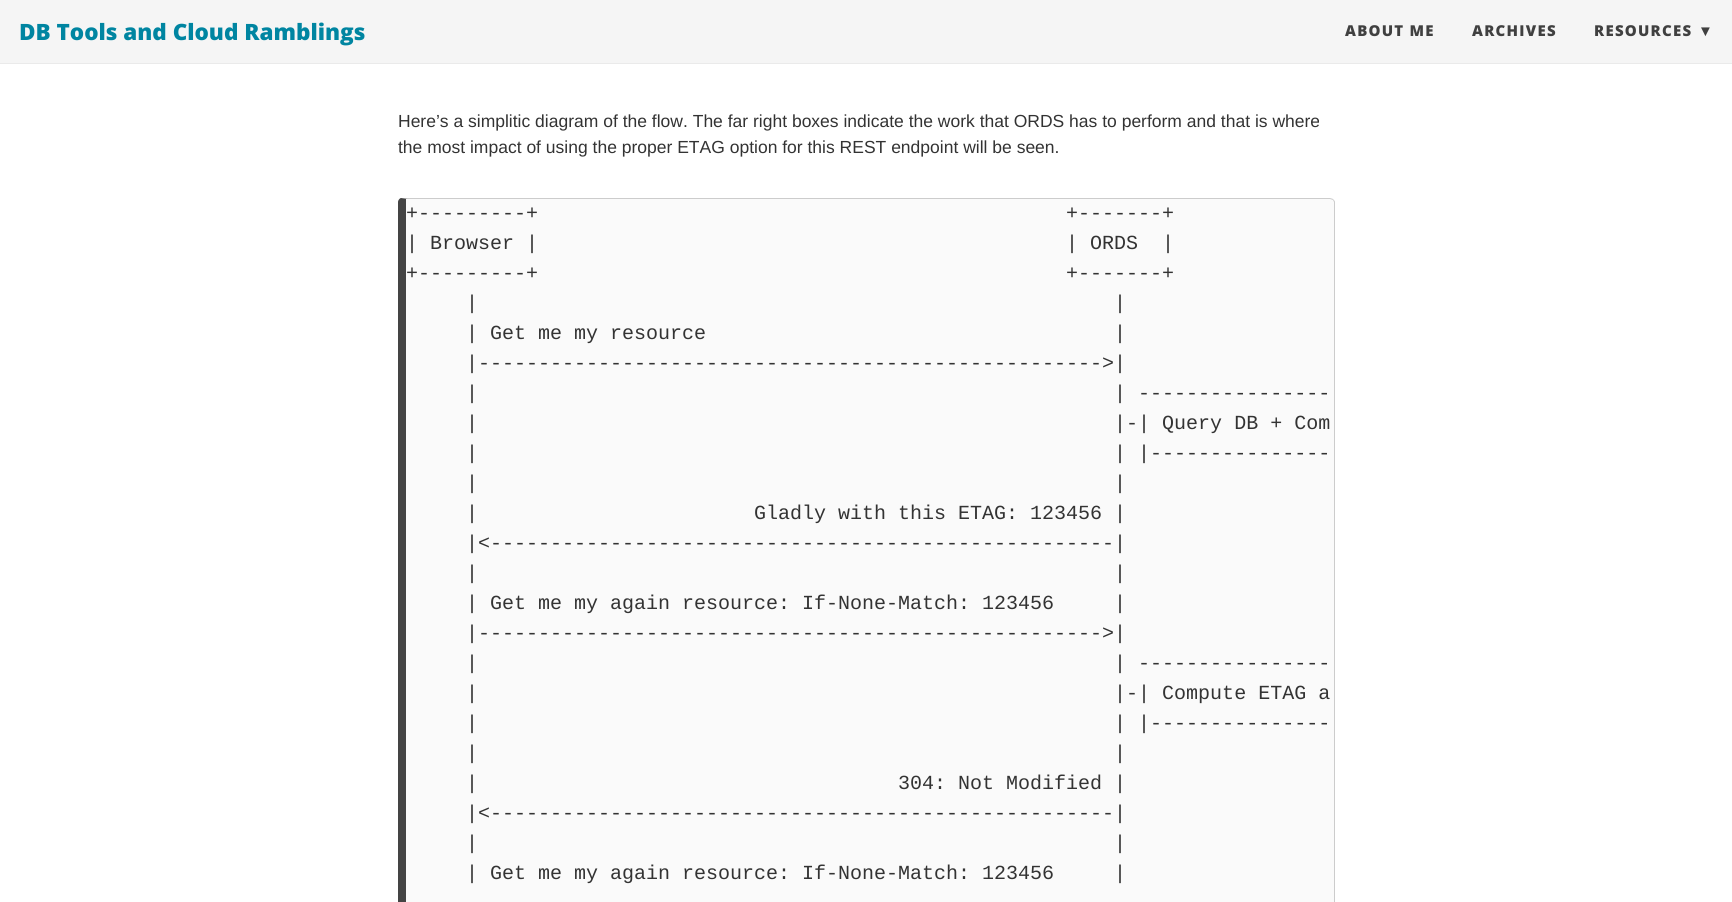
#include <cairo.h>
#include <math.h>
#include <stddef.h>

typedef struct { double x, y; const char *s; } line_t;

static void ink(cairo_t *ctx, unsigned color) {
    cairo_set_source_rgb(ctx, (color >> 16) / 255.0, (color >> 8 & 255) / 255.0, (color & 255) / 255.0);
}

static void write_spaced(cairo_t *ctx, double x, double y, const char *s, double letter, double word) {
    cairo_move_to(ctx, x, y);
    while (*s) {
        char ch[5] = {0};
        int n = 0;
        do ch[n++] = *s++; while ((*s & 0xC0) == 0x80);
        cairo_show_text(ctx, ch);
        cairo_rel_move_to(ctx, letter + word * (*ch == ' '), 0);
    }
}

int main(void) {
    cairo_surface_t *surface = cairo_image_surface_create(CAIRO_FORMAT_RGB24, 1732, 902);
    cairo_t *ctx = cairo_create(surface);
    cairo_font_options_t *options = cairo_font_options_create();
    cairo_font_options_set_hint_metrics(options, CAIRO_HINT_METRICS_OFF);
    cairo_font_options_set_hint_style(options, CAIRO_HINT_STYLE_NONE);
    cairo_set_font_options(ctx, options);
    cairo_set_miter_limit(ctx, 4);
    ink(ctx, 0xFFFFFF);
    cairo_paint(ctx);
    ink(ctx, 0xF5F5F5);
    cairo_rectangle(ctx, 0, 0, 1732, 63);
    cairo_fill(ctx);
    ink(ctx, 0xEAEAEA);
    cairo_rectangle(ctx, 0, 63, 1732, 1);
    cairo_fill(ctx);
    cairo_select_font_face(ctx, "Open Sans ExtraBold", CAIRO_FONT_SLANT_NORMAL, CAIRO_FONT_WEIGHT_NORMAL);
    cairo_set_font_size(ctx, 22.5);
    ink(ctx, 0x0085A1);
    cairo_move_to(ctx, 19, 40);
    cairo_show_text(ctx, "DB Tools and Cloud Ramblings");
    cairo_set_font_size(ctx, 15);
    ink(ctx, 0x404040);
    {
        static const line_t items[] = {
            {1345, 36, "ABOUT ME"},
            {1472, 36, "ARCHIVES"},
            {1594, 36, "RESOURCES"},
        };
        for (size_t i = 0; i < sizeof items / sizeof *items; i++) {
            write_spaced(ctx, items[i].x, items[i].y, items[i].s, 1.25, 0);
        }
    }
    cairo_select_font_face(ctx, "Liberation Sans", CAIRO_FONT_SLANT_NORMAL, CAIRO_FONT_WEIGHT_BOLD);
    write_spaced(ctx, 1698, 36, "▼", 1.25, 0);
    cairo_select_font_face(ctx, "Liberation Sans", CAIRO_FONT_SLANT_NORMAL, CAIRO_FONT_WEIGHT_NORMAL);
    cairo_set_font_size(ctx, 17.5);
    ink(ctx, 0x333333);
    cairo_move_to(ctx, 398, 127);
    cairo_show_text(ctx, "Here’s a simplitic diagram of the flow. The far right boxes indicate the work that ORDS has to perform and that is where");
    cairo_move_to(ctx, 398, 153);
    cairo_show_text(ctx, "the most impact of using the proper ETAG option for this REST endpoint will be seen.");
    ink(ctx, 0xFAFAFA);
    cairo_new_path(ctx);
    cairo_move_to(ctx, 406, 199);
    cairo_line_to(ctx, 1330, 199);
    cairo_curve_to(ctx, 1332, 199, 1334, 200, 1334, 202);
    cairo_line_to(ctx, 1334, 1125);
    cairo_curve_to(ctx, 1334, 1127, 1332, 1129, 1330, 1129);
    cairo_line_to(ctx, 406, 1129);
    cairo_close_path(ctx);
    cairo_fill(ctx);
    ink(ctx, 0xCCCCCC);
    cairo_new_path(ctx);
    cairo_move_to(ctx, 402, 198);
    cairo_line_to(ctx, 401, 198);
    cairo_line_to(ctx, 408, 199);
    cairo_line_to(ctx, 1330, 199);
    cairo_line_to(ctx, 1333, 200);
    cairo_line_to(ctx, 1333, 199);
    cairo_line_to(ctx, 1330, 198);
    cairo_close_path(ctx);
    cairo_fill(ctx);
    cairo_new_path(ctx);
    cairo_move_to(ctx, 1335, 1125);
    cairo_line_to(ctx, 1335, 202);
    cairo_curve_to(ctx, 1335, 201, 1334, 200, 1333, 199);
    cairo_line_to(ctx, 1333, 200);
    cairo_line_to(ctx, 1334, 202);
    cairo_line_to(ctx, 1334, 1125);
    cairo_line_to(ctx, 1333, 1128);
    cairo_line_to(ctx, 1334, 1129);
    cairo_curve_to(ctx, 1334, 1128, 1335, 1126, 1335, 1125);
    cairo_close_path(ctx);
    cairo_fill(ctx);
    ink(ctx, 0x444444);
    cairo_new_path(ctx);
    cairo_move_to(ctx, 406, 199);
    cairo_line_to(ctx, 408, 199);
    cairo_line_to(ctx, 401, 198);
    cairo_curve_to(ctx, 400, 198, 398, 200, 398, 202);
    cairo_line_to(ctx, 398, 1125);
    cairo_curve_to(ctx, 398, 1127, 399, 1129, 400, 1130);
    cairo_line_to(ctx, 406, 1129);
    cairo_close_path(ctx);
    cairo_fill(ctx);
    cairo_select_font_face(ctx, "Liberation Mono", CAIRO_FONT_SLANT_NORMAL, CAIRO_FONT_WEIGHT_NORMAL);
    cairo_set_font_size(ctx, 20);
    ink(ctx, 0x333333);
    {
        static const line_t items[] = {
            {406, 219, "+---------+                                            +-------+"},
            {406, 249, "| Browser |                                            | ORDS  |"},
            {406, 279, "+---------+                                            +-------+"},
            {466, 309, "|                                                     |"},
            {466, 339, "| Get me my resource                                  |"},
            {466, 369, "|---------------------------------------------------->|"},
            {466, 399, "|                                                     | ----------------"},
            {466, 429, "|                                                     |-| Query DB + Com"},
            {466, 459, "|                                                     | |---------------"},
            {466, 489, "|                                                     |"},
            {466, 519, "|                       Gladly with this ETAG: 123456 |"},
            {466, 549, "|<----------------------------------------------------|"},
            {466, 579, "|                                                     |"},
            {466, 609, "| Get me my again resource: If-None-Match: 123456     |"},
            {466, 639, "|---------------------------------------------------->|"},
            {466, 669, "|                                                     | ----------------"},
            {466, 699, "|                                                     |-| Compute ETAG a"},
            {466, 729, "|                                                     | |---------------"},
            {466, 759, "|                                                     |"},
            {466, 789, "|                                   304: Not Modified |"},
            {466, 819, "|<----------------------------------------------------|"},
            {466, 849, "|                                                     |"},
            {466, 879, "| Get me my again resource: If-None-Match: 123456     |"},
        };
        for (size_t i = 0; i < sizeof items / sizeof *items; i++) {
            cairo_move_to(ctx, items[i].x, items[i].y);
            cairo_show_text(ctx, items[i].s);
        }
    }
    cairo_surface_write_to_png(surface, "image.png");
    cairo_font_options_destroy(options);
    cairo_destroy(ctx);
    cairo_surface_destroy(surface);
    return 0;
}
